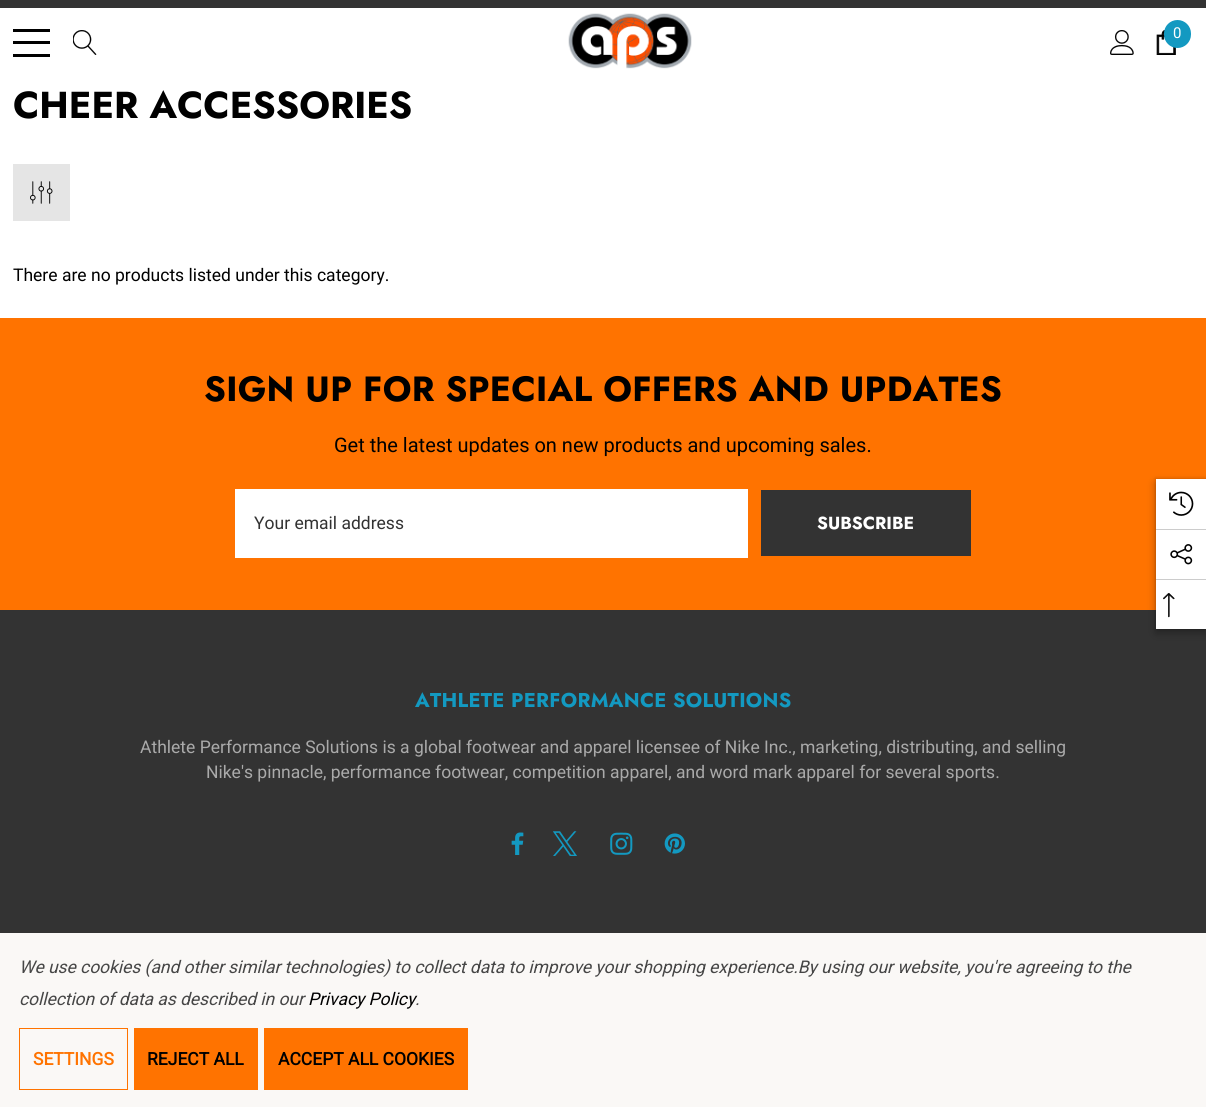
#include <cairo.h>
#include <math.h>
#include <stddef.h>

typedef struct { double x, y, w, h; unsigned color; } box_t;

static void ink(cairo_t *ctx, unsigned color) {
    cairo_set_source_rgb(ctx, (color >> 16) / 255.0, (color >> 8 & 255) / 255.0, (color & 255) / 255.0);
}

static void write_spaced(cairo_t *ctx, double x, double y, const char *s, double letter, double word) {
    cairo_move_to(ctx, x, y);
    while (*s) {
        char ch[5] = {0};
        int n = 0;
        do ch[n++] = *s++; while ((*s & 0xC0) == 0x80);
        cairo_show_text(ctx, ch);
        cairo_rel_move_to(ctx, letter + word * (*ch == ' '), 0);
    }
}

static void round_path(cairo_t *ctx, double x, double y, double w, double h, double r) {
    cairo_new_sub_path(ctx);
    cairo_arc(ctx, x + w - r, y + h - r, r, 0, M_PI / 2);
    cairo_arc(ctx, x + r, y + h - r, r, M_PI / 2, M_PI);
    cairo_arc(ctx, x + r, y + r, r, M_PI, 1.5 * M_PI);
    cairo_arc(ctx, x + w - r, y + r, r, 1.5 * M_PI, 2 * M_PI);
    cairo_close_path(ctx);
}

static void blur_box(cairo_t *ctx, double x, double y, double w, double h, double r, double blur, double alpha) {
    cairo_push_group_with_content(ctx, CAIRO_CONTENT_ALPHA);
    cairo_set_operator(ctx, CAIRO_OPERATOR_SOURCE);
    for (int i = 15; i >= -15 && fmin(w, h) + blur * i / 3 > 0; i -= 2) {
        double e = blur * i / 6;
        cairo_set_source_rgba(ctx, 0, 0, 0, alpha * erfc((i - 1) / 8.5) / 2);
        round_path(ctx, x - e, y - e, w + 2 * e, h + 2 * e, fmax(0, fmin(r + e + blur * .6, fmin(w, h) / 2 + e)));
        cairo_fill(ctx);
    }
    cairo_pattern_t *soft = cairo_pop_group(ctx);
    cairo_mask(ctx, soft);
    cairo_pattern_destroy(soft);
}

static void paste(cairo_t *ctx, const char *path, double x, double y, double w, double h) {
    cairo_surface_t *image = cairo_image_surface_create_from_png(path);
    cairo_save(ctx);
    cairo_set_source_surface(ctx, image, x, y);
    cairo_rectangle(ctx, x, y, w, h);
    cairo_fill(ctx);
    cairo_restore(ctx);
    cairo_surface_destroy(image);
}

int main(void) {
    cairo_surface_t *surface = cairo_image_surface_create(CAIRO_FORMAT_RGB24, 1206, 1107);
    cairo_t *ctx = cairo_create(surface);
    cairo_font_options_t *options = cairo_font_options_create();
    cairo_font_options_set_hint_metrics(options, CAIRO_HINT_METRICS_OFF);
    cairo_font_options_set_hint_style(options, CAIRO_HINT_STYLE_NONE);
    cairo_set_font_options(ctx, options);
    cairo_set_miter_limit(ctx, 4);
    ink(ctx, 0xFFFFFF);
    cairo_paint(ctx);
    {
        static const box_t items[] = {
            {0, 0, 1206, 8, 0x333333},
            {13, 41, 37, 3, 0x000000},
            {13, 29, 37, 3, 0x000000},
            {13, 54, 37, 3, 0x000000},
        };
        for (size_t i = 0; i < sizeof items / sizeof *items; i++) {
            ink(ctx, items[i].color);
            cairo_rectangle(ctx, items[i].x, items[i].y, items[i].w, items[i].h);
            cairo_fill(ctx);
        }
    }
    paste(ctx, "media/1.png", 73, 30, 24, 25);
    paste(ctx, "media/2.png", 568, 13, 124, 56);
    paste(ctx, "media/3.png", 1110, 30, 24, 25);
    paste(ctx, "media/4.png", 1156, 30, 20, 25);
    ink(ctx, 0x1399C1);
    round_path(ctx, 1164, 20, 27, 28, 13.5);
    cairo_fill(ctx);
    cairo_select_font_face(ctx, "Roboto", CAIRO_FONT_SLANT_NORMAL, CAIRO_FONT_WEIGHT_NORMAL);
    cairo_set_font_size(ctx, 15);
    ink(ctx, 0xFFFFFF);
    cairo_move_to(ctx, 1173, 38);
    cairo_show_text(ctx, "0");
    cairo_select_font_face(ctx, "Jost", CAIRO_FONT_SLANT_NORMAL, CAIRO_FONT_WEIGHT_BOLD);
    cairo_set_font_size(ctx, 37.5);
    ink(ctx, 0x000000);
    cairo_move_to(ctx, 13, 118);
    cairo_show_text(ctx, "CHEER ACCESSORIES");
    ink(ctx, 0xE5E5E5);
    cairo_rectangle(ctx, 13, 164, 57, 57);
    cairo_fill(ctx);
    paste(ctx, "media/5.png", 30, 181, 23, 23);
    cairo_select_font_face(ctx, "Roboto", CAIRO_FONT_SLANT_NORMAL, CAIRO_FONT_WEIGHT_NORMAL);
    cairo_set_font_size(ctx, 17.5);
    ink(ctx, 0x000000);
    cairo_move_to(ctx, 13, 281);
    cairo_show_text(ctx, "There are no products listed under this category.");
    ink(ctx, 0x333333);
    cairo_rectangle(ctx, 0, 610, 1206, 323);
    cairo_fill(ctx);
    ink(ctx, 0xFF7300);
    cairo_rectangle(ctx, 0, 318, 1206, 292);
    cairo_fill(ctx);
    cairo_select_font_face(ctx, "Jost", CAIRO_FONT_SLANT_NORMAL, CAIRO_FONT_WEIGHT_BOLD);
    cairo_set_font_size(ctx, 35);
    ink(ctx, 0x000000);
    write_spaced(ctx, 204, 401, "SIGN UP FOR SPECIAL OFFERS AND UPDATES", 0.3, 0);
    cairo_select_font_face(ctx, "Roboto", CAIRO_FONT_SLANT_NORMAL, CAIRO_FONT_WEIGHT_NORMAL);
    cairo_set_font_size(ctx, 20);
    cairo_move_to(ctx, 334, 452);
    cairo_show_text(ctx, "Get the latest updates on new products and upcoming sales.");
    ink(ctx, 0xFFFFFF);
    cairo_rectangle(ctx, 235, 489, 513, 69);
    cairo_fill(ctx);
    cairo_set_font_size(ctx, 17.5);
    ink(ctx, 0x323232);
    cairo_move_to(ctx, 254, 529);
    cairo_show_text(ctx, "Your email address");
    ink(ctx, 0x333333);
    cairo_rectangle(ctx, 761, 490, 210, 66);
    cairo_fill(ctx);
    cairo_select_font_face(ctx, "Jost", CAIRO_FONT_SLANT_NORMAL, CAIRO_FONT_WEIGHT_BOLD);
    ink(ctx, 0xFFFFFF);
    cairo_move_to(ctx, 817, 529);
    cairo_show_text(ctx, "SUBSCRIBE");
    cairo_set_font_size(ctx, 20);
    ink(ctx, 0x1399C1);
    write_spaced(ctx, 415, 707, "ATHLETE PERFORMANCE SOLUTIONS", 0.3, 0);
    cairo_select_font_face(ctx, "Roboto", CAIRO_FONT_SLANT_NORMAL, CAIRO_FONT_WEIGHT_NORMAL);
    cairo_set_font_size(ctx, 17.5);
    ink(ctx, 0xAAAAAA);
    cairo_move_to(ctx, 140, 753);
    cairo_show_text(ctx, "Athlete Performance Solutions is a global footwear and apparel licensee of Nike Inc., marketing, distributing, and selling");
    cairo_move_to(ctx, 206, 778);
    cairo_show_text(ctx, "Nike's pinnacle, performance footwear, competition apparel, and word mark apparel for several sports.");
    paste(ctx, "media/6.png", 511, 832, 13, 23);
    paste(ctx, "media/7.png", 553, 831, 24, 25);
    paste(ctx, "media/8.png", 610, 832, 23, 23);
    paste(ctx, "media/9.png", 664, 833, 21, 21);
    ink(ctx, 0x000000);
    blur_box(ctx, 1156, 483, 50, 150, 0, 4.5, 0.3);
    blur_box(ctx, 1155, 478, 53, 152, 0, 1, 0.1);
    ink(ctx, 0xFFFFFF);
    cairo_rectangle(ctx, 1156, 479, 50, 150);
    cairo_fill(ctx);
    paste(ctx, "media/10.png", 1169, 491, 25, 25);
    ink(ctx, 0xCCCCCC);
    cairo_rectangle(ctx, 1156, 529, 50, 1);
    cairo_fill(ctx);
    paste(ctx, "media/11.png", 1170, 544, 23, 21);
    cairo_rectangle(ctx, 1156, 579, 50, 1);
    cairo_fill(ctx);
    paste(ctx, "media/12.png", 1163, 593, 12, 25);
    ink(ctx, 0xFAF8F6);
    cairo_rectangle(ctx, 0, 933, 1206, 174);
    cairo_fill(ctx);
    cairo_select_font_face(ctx, "Roboto", CAIRO_FONT_SLANT_ITALIC, CAIRO_FONT_WEIGHT_NORMAL);
    ink(ctx, 0x464646);
    write_spaced(ctx, 19, 973, "We use cookies (and other similar technologies) to collect data to improve your shopping experience.By using our website, you're agreeing to the", -0.06, 0);
    write_spaced(ctx, 19, 1005, "collection of data as described in our", -0.06, 0);
    ink(ctx, 0x000000);
    write_spaced(ctx, 308, 1005, "Privacy Policy", -0.06, 0);
    ink(ctx, 0x464646);
    write_spaced(ctx, 415, 1005, ".", -0.06, 0);
    cairo_rectangle(ctx, 19.5, 1028.5, 108, 61);
    ink(ctx, 0xFF7300);
    cairo_set_line_width(ctx, 1);
    cairo_stroke(ctx);
    cairo_select_font_face(ctx, "Roboto", CAIRO_FONT_SLANT_NORMAL, CAIRO_FONT_WEIGHT_BOLD);
    cairo_move_to(ctx, 33, 1065);
    cairo_show_text(ctx, "SETTINGS");
    cairo_rectangle(ctx, 134, 1028, 124, 62);
    cairo_fill(ctx);
    ink(ctx, 0x000000);
    cairo_move_to(ctx, 147, 1065);
    cairo_show_text(ctx, "REJECT ALL");
    ink(ctx, 0xFF7300);
    cairo_rectangle(ctx, 264, 1028, 204, 62);
    cairo_fill(ctx);
    ink(ctx, 0x000000);
    cairo_move_to(ctx, 278, 1065);
    cairo_show_text(ctx, "ACCEPT ALL COOKIES");
    cairo_surface_write_to_png(surface, "image.png");
    cairo_font_options_destroy(options);
    cairo_destroy(ctx);
    cairo_surface_destroy(surface);
    return 0;
}
